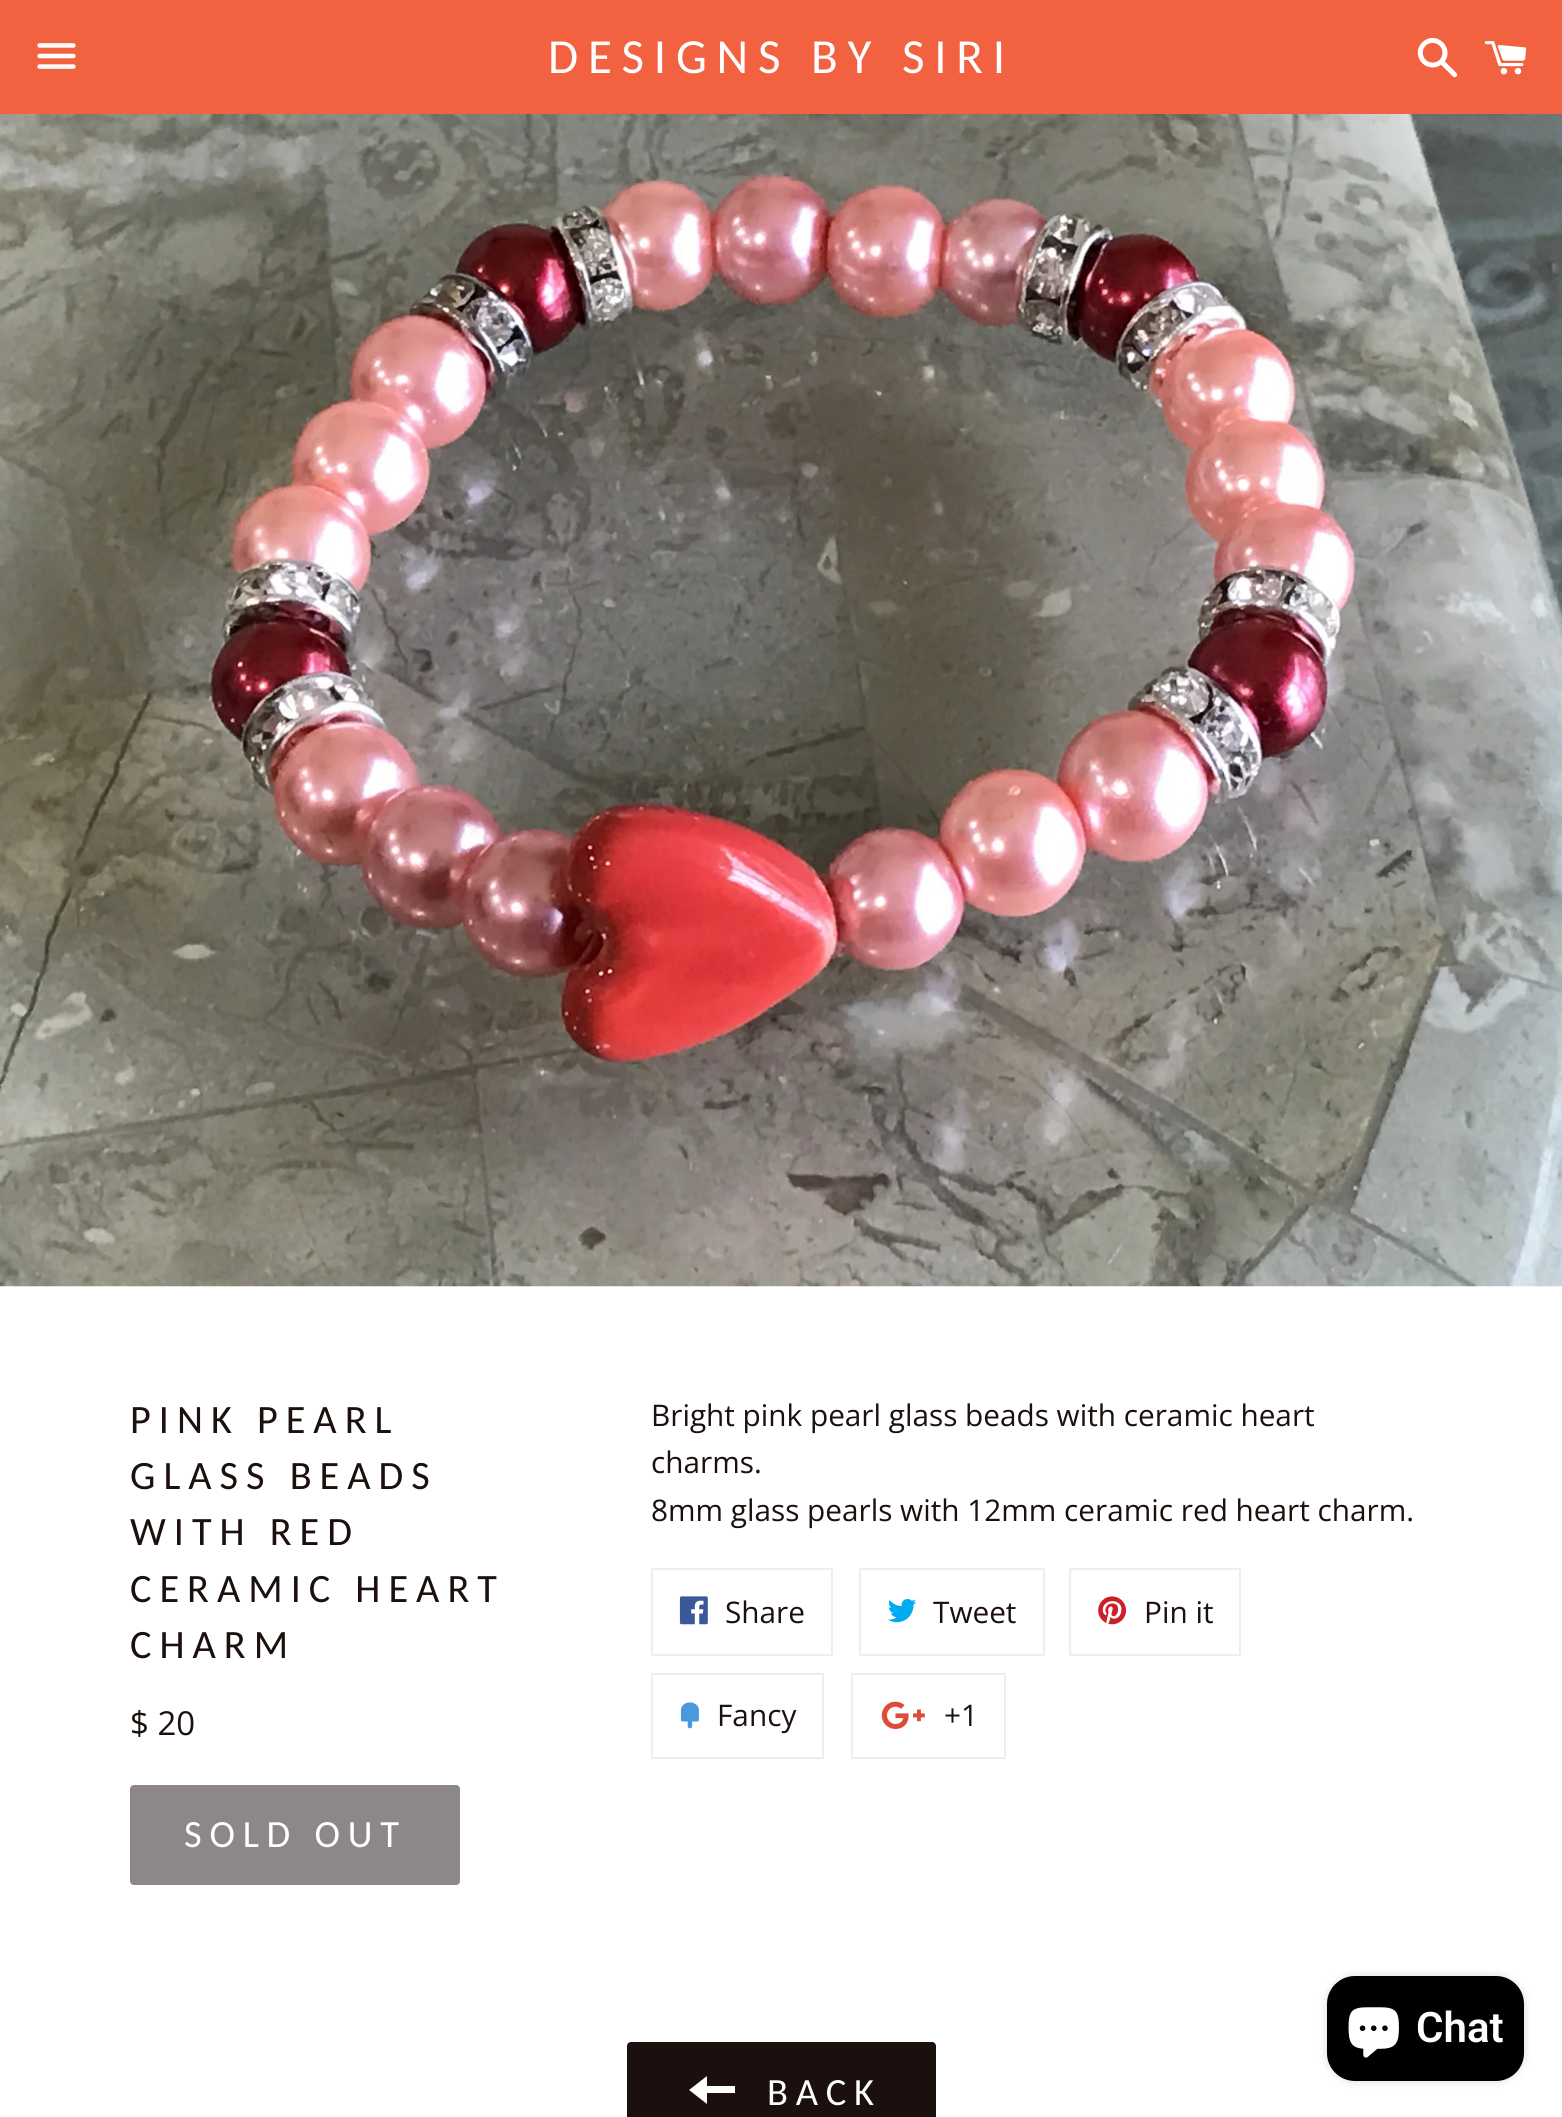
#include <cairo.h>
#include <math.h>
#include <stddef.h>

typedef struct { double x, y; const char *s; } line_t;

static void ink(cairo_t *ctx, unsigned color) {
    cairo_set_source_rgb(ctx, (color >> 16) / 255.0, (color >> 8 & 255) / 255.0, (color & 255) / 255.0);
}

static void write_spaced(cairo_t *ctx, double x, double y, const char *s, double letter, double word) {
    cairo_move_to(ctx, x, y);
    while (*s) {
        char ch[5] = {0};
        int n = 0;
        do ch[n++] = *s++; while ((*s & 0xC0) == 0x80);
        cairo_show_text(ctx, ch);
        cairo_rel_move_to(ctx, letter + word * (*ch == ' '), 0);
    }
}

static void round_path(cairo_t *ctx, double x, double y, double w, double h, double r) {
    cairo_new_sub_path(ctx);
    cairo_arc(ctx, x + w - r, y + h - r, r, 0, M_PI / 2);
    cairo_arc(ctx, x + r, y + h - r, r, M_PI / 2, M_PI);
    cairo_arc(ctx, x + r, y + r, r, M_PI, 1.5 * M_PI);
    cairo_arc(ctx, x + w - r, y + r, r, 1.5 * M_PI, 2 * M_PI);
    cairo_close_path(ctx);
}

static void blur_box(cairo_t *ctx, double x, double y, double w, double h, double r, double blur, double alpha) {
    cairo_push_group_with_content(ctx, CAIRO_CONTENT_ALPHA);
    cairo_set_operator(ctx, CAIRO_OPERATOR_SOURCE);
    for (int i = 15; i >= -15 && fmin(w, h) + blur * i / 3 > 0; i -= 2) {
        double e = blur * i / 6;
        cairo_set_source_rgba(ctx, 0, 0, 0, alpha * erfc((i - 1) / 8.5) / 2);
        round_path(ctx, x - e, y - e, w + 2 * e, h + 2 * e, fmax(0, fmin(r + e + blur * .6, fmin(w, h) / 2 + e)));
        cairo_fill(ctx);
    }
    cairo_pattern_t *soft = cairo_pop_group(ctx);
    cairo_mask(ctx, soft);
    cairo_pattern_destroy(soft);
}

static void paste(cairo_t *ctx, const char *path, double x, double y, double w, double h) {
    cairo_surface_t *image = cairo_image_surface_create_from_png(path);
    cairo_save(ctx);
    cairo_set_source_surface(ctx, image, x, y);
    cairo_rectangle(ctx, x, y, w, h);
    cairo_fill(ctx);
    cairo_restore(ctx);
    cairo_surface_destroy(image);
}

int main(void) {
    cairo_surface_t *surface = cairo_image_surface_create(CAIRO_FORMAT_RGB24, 1562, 2117);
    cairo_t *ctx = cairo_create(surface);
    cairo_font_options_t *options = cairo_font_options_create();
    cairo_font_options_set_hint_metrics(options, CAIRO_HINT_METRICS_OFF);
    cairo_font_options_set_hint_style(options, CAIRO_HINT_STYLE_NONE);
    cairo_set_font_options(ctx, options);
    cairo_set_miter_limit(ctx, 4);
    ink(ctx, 0xFFFFFF);
    cairo_paint(ctx);
    ink(ctx, 0xF26241);
    cairo_rectangle(ctx, 0, 0, 1562, 114);
    cairo_fill(ctx);
    paste(ctx, "media/1.png", 37, 43, 39, 26);
    cairo_select_font_face(ctx, "Carlito", CAIRO_FONT_SLANT_NORMAL, CAIRO_FONT_WEIGHT_NORMAL);
    cairo_set_font_size(ctx, 49);
    ink(ctx, 0xFFFFFF);
    write_spaced(ctx, 548, 73, "DESIGNS BY SIRI", 9.75, 0);
    paste(ctx, "media/2.png", 1417, 37, 41, 41);
    paste(ctx, "media/3.png", 1484, 41, 43, 34);
    paste(ctx, "media/4.png", 0, 114, 1562, 1173);
    cairo_set_font_size(ctx, 40.25);
    ink(ctx, 0x1B100E);
    {
        static const line_t items[] = {
            {130, 1433, "PINK PEARL"},
            {130, 1489, "GLASS BEADS"},
            {130, 1545, "WITH RED"},
            {130, 1602, "CERAMIC HEART"},
            {130, 1658, "CHARM"},
        };
        for (size_t i = 0; i < sizeof items / sizeof *items; i++) {
            write_spaced(ctx, items[i].x, items[i].y, items[i].s, 8, 0);
        }
    }
    cairo_select_font_face(ctx, "Open Sans", CAIRO_FONT_SLANT_NORMAL, CAIRO_FONT_WEIGHT_NORMAL);
    cairo_set_font_size(ctx, 33);
    cairo_move_to(ctx, 130, 1735);
    cairo_show_text(ctx, "$ 20");
    ink(ctx, 0x8D8887);
    round_path(ctx, 130, 1785, 330, 100, 4);
    cairo_fill(ctx);
    cairo_select_font_face(ctx, "Carlito", CAIRO_FONT_SLANT_NORMAL, CAIRO_FONT_WEIGHT_NORMAL);
    cairo_set_font_size(ctx, 38.5);
    ink(ctx, 0xFFFFFF);
    write_spaced(ctx, 184, 1847, "SOLD OUT", 7.75, 0);
    cairo_select_font_face(ctx, "Open Sans", CAIRO_FONT_SLANT_NORMAL, CAIRO_FONT_WEIGHT_NORMAL);
    cairo_set_font_size(ctx, 29.75);
    ink(ctx, 0x1B100E);
    {
        static const line_t items[] = {
            {651, 1426, "Bright pink pearl glass beads with ceramic heart"},
            {651, 1473, "charms."},
            {651, 1521, "8mm glass pearls with 12mm ceramic red heart charm."},
        };
        for (size_t i = 0; i < sizeof items / sizeof *items; i++) {
            cairo_move_to(ctx, items[i].x, items[i].y);
            cairo_show_text(ctx, items[i].s);
        }
    }
    cairo_rectangle(ctx, 652, 1569, 180, 86);
    ink(ctx, 0xECEFF1);
    cairo_stroke(ctx);
    paste(ctx, "media/5.png", 679, 1596, 29, 29);
    ink(ctx, 0x1B100E);
    cairo_move_to(ctx, 725, 1623);
    cairo_show_text(ctx, "Share");
    cairo_rectangle(ctx, 860, 1569, 184, 86);
    ink(ctx, 0xECEFF1);
    cairo_stroke(ctx);
    paste(ctx, "media/6.png", 887, 1599, 30, 24);
    ink(ctx, 0x1B100E);
    cairo_move_to(ctx, 933, 1623);
    cairo_show_text(ctx, "Tweet");
    cairo_rectangle(ctx, 1070, 1569, 170, 86);
    ink(ctx, 0xECEFF1);
    cairo_stroke(ctx);
    paste(ctx, "media/7.png", 1098, 1596, 29, 29);
    ink(ctx, 0x1B100E);
    cairo_move_to(ctx, 1144, 1623);
    cairo_show_text(ctx, "Pin it");
    cairo_rectangle(ctx, 652, 1674, 171, 84);
    ink(ctx, 0xECEFF1);
    cairo_stroke(ctx);
    paste(ctx, "media/8.png", 680, 1702, 19, 27);
    ink(ctx, 0x1B100E);
    cairo_move_to(ctx, 717, 1726);
    cairo_show_text(ctx, "Fancy");
    cairo_rectangle(ctx, 852, 1674, 153, 84);
    ink(ctx, 0xECEFF1);
    cairo_stroke(ctx);
    paste(ctx, "media/9.png", 881, 1701, 44, 28);
    ink(ctx, 0x1B100E);
    cairo_move_to(ctx, 944, 1726);
    cairo_show_text(ctx, "+1");
    round_path(ctx, 627, 2042, 309, 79, 4);
    cairo_fill(ctx);
    ink(ctx, 0xFFFFFF);
    cairo_new_path(ctx);
    cairo_move_to(ctx, 707, 2086);
    cairo_line_to(ctx, 707, 2076);
    cairo_line_to(ctx, 689, 2090);
    cairo_line_to(ctx, 707, 2104);
    cairo_line_to(ctx, 707, 2093);
    cairo_line_to(ctx, 735, 2093);
    cairo_line_to(ctx, 735, 2086);
    cairo_close_path(ctx);
    cairo_fill(ctx);
    cairo_select_font_face(ctx, "Carlito", CAIRO_FONT_SLANT_NORMAL, CAIRO_FONT_WEIGHT_NORMAL);
    cairo_set_font_size(ctx, 38.5);
    write_spaced(ctx, 767, 2105, "BACK", 7.75, 0);
    ink(ctx, 0x000000);
    blur_box(ctx, 1327, 1976, 197, 105, 28, 4.5, 0.15);
    ink(ctx, 0x000000);
    round_path(ctx, 1327, 1976, 197, 105, 28);
    cairo_fill(ctx);
    paste(ctx, "media/10.png", 1348, 2007, 51, 51);
    cairo_select_font_face(ctx, "Roboto SemiBold", CAIRO_FONT_SLANT_NORMAL, CAIRO_FONT_WEIGHT_NORMAL);
    cairo_set_font_size(ctx, 42);
    ink(ctx, 0xFFFFFF);
    cairo_move_to(ctx, 1416, 2042);
    cairo_show_text(ctx, "Chat");
    cairo_surface_write_to_png(surface, "image.png");
    cairo_font_options_destroy(options);
    cairo_destroy(ctx);
    cairo_surface_destroy(surface);
    return 0;
}
